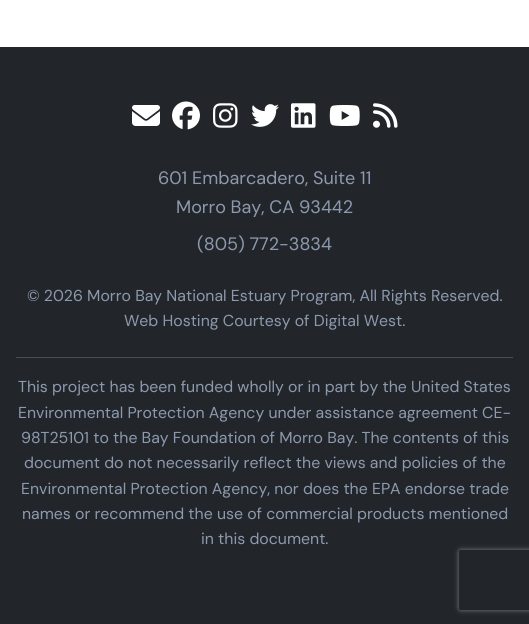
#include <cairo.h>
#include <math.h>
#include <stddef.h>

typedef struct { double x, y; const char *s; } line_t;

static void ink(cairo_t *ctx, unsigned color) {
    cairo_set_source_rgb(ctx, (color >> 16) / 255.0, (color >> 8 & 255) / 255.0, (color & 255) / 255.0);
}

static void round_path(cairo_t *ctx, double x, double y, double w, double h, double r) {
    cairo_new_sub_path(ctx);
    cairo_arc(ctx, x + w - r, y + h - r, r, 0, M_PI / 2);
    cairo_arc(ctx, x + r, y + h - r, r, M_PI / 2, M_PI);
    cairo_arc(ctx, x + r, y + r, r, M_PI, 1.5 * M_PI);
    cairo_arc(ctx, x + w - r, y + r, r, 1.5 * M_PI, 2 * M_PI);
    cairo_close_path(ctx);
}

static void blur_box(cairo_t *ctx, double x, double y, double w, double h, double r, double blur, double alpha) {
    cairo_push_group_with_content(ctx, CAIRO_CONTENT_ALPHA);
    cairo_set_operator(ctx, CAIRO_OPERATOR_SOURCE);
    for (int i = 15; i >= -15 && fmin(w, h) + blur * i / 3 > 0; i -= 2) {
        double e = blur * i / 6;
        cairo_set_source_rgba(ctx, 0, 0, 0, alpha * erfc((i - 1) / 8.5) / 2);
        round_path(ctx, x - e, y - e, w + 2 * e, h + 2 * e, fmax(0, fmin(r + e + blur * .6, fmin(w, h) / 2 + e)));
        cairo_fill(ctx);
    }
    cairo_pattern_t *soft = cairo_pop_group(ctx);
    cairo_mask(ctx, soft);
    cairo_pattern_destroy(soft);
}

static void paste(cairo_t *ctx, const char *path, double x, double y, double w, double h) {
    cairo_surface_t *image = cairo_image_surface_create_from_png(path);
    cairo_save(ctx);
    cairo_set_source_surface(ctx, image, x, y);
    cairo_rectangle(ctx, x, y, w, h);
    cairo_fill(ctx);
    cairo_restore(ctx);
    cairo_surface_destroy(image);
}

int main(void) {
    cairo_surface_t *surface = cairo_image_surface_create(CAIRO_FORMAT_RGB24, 529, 624);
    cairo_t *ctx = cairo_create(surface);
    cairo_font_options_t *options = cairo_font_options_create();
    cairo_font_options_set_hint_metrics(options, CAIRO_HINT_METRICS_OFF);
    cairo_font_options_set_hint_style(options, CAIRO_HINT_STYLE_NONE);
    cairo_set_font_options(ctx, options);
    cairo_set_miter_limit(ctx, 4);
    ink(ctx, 0xFFFFFF);
    cairo_paint(ctx);
    ink(ctx, 0x22262B);
    cairo_rectangle(ctx, 0, 47, 529, 577);
    cairo_fill(ctx);
    paste(ctx, "media/1.png", 132, 105, 28, 21);
    paste(ctx, "media/2.png", 172, 101, 28, 29);
    paste(ctx, "media/3.png", 213, 103, 25, 25);
    paste(ctx, "media/4.png", 251, 104, 28, 23);
    paste(ctx, "media/5.png", 291, 103, 25, 25);
    paste(ctx, "media/6.png", 329, 105, 31, 21);
    paste(ctx, "media/7.png", 373, 103, 25, 25);
    cairo_select_font_face(ctx, "DM Sans", CAIRO_FONT_SLANT_NORMAL, CAIRO_FONT_WEIGHT_NORMAL);
    cairo_set_font_size(ctx, 18);
    ink(ctx, 0x8D9AAE);
    {
        static const line_t items[] = {
            {158, 184, "601 Embarcadero, Suite 11"},
            {176, 213, "Morro Bay, CA 93442"},
            {197, 250, "(805) 772-3834"},
        };
        for (size_t i = 0; i < sizeof items / sizeof *items; i++) {
            cairo_move_to(ctx, items[i].x, items[i].y);
            cairo_show_text(ctx, items[i].s);
        }
    }
    cairo_set_font_size(ctx, 15.85);
    cairo_move_to(ctx, 27, 301);
    cairo_show_text(ctx, "© 2026 Morro Bay National Estuary Program, All Rights Reserved.");
    cairo_move_to(ctx, 124, 326);
    cairo_show_text(ctx, "Web Hosting Courtesy of Digital West.");
    ink(ctx, 0x4A4F55);
    cairo_rectangle(ctx, 16, 357, 497, 1);
    cairo_fill(ctx);
    ink(ctx, 0x8D9AAE);
    {
        static const line_t items[] = {
            {18, 392, "This project has been funded wholly or in part by the United States"},
            {18, 418, "Environmental Protection Agency under assistance agreement CE-"},
            {21, 443, "98T25101 to the Bay Foundation of Morro Bay. The contents of this"},
            {24, 468, "document do not necessarily reflect the views and policies of the"},
            {21, 494, "Environmental Protection Agency, nor does the EPA endorse trade"},
            {22, 519, "names or recommend the use of commercial products mentioned"},
            {201, 544, "in this document."},
        };
        for (size_t i = 0; i < sizeof items / sizeof *items; i++) {
            cairo_move_to(ctx, items[i].x, items[i].y);
            cairo_show_text(ctx, items[i].s);
        }
    }
    cairo_save(ctx);
    cairo_set_fill_rule(ctx, CAIRO_FILL_RULE_EVEN_ODD);
    cairo_new_path(ctx);
    cairo_move_to(ctx, 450, 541);
    cairo_line_to(ctx, 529, 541);
    cairo_line_to(ctx, 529, 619);
    cairo_line_to(ctx, 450, 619);
    cairo_close_path(ctx);
    cairo_move_to(ctx, 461, 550);
    cairo_line_to(ctx, 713, 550);
    cairo_curve_to(ctx, 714, 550, 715, 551, 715, 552);
    cairo_line_to(ctx, 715, 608);
    cairo_curve_to(ctx, 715, 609, 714, 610, 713, 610);
    cairo_line_to(ctx, 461, 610);
    cairo_curve_to(ctx, 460, 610, 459, 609, 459, 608);
    cairo_line_to(ctx, 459, 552);
    cairo_curve_to(ctx, 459, 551, 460, 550, 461, 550);
    cairo_close_path(ctx);
    cairo_clip(ctx);
    ink(ctx, 0x808080);
    blur_box(ctx, 459, 550, 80, 60, 2, 2.5, 1);
    cairo_restore(ctx);
    cairo_surface_write_to_png(surface, "image.png");
    cairo_font_options_destroy(options);
    cairo_destroy(ctx);
    cairo_surface_destroy(surface);
    return 0;
}
